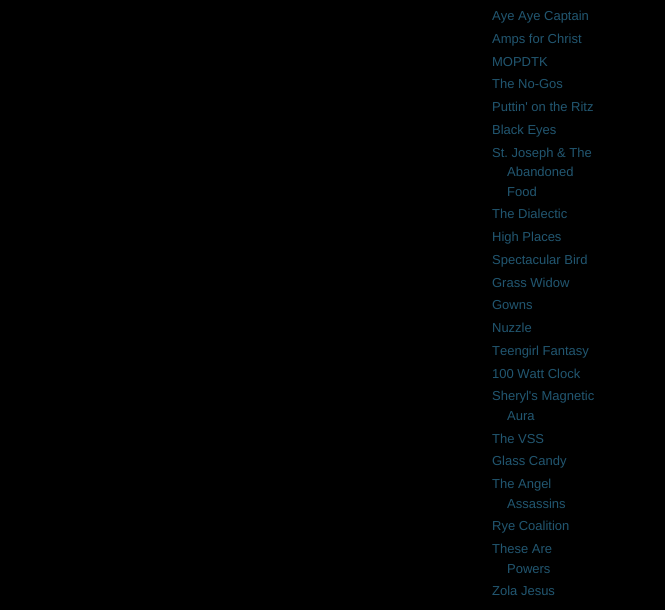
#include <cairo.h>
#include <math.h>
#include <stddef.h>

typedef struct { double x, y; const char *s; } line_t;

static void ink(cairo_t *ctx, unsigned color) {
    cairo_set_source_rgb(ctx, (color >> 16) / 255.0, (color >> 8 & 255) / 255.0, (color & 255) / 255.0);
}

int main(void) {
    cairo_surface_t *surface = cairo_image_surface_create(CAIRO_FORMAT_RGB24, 665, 610);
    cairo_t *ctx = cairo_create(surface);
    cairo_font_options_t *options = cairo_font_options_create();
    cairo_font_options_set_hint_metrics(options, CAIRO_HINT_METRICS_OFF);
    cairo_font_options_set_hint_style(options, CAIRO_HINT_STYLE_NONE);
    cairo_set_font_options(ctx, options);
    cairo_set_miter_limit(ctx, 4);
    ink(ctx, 0x000000);
    cairo_paint(ctx);
    cairo_select_font_face(ctx, "Liberation Sans", CAIRO_FONT_SLANT_NORMAL, CAIRO_FONT_WEIGHT_NORMAL);
    cairo_set_font_size(ctx, 13);
    ink(ctx, 0x215670);
    {
        static const line_t items[] = {
            {492, 20, "Aye Aye Captain"},
            {492, 43, "Amps for Christ"},
            {492, 66, "MOPDTK"},
            {492, 88, "The No-Gos"},
            {492, 111, "Puttin' on the Ritz"},
            {492, 134, "Black Eyes"},
            {492, 157, "St. Joseph & The"},
            {507, 176, "Abandoned"},
            {507, 196, "Food"},
            {492, 218, "The Dialectic"},
            {492, 241, "High Places"},
            {492, 264, "Spectacular Bird"},
            {492, 287, "Grass Widow"},
            {492, 309, "Gowns"},
            {492, 332, "Nuzzle"},
            {492, 355, "Teengirl Fantasy"},
            {492, 378, "100 Watt Clock"},
            {492, 400, "Sheryl's Magnetic"},
            {507, 420, "Aura"},
            {492, 443, "The VSS"},
            {492, 465, "Glass Candy"},
            {492, 488, "The Angel"},
            {507, 508, "Assassins"},
            {492, 530, "Rye Coalition"},
            {492, 553, "These Are"},
            {507, 573, "Powers"},
            {492, 595, "Zola Jesus"},
        };
        for (size_t i = 0; i < sizeof items / sizeof *items; i++) {
            cairo_move_to(ctx, items[i].x, items[i].y);
            cairo_show_text(ctx, items[i].s);
        }
    }
    cairo_surface_write_to_png(surface, "image.png");
    cairo_font_options_destroy(options);
    cairo_destroy(ctx);
    cairo_surface_destroy(surface);
    return 0;
}
